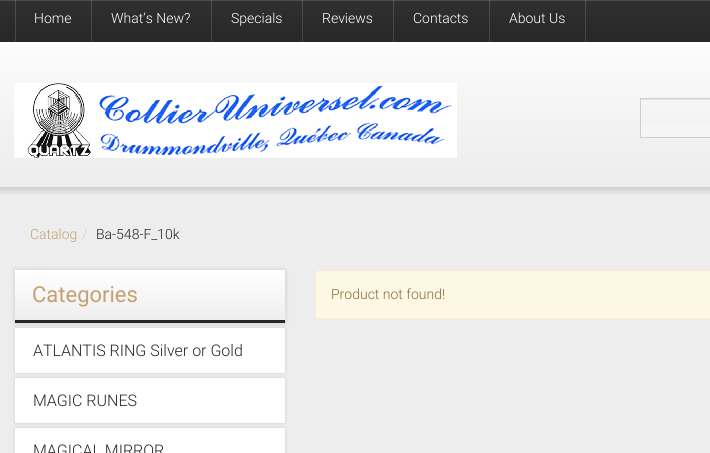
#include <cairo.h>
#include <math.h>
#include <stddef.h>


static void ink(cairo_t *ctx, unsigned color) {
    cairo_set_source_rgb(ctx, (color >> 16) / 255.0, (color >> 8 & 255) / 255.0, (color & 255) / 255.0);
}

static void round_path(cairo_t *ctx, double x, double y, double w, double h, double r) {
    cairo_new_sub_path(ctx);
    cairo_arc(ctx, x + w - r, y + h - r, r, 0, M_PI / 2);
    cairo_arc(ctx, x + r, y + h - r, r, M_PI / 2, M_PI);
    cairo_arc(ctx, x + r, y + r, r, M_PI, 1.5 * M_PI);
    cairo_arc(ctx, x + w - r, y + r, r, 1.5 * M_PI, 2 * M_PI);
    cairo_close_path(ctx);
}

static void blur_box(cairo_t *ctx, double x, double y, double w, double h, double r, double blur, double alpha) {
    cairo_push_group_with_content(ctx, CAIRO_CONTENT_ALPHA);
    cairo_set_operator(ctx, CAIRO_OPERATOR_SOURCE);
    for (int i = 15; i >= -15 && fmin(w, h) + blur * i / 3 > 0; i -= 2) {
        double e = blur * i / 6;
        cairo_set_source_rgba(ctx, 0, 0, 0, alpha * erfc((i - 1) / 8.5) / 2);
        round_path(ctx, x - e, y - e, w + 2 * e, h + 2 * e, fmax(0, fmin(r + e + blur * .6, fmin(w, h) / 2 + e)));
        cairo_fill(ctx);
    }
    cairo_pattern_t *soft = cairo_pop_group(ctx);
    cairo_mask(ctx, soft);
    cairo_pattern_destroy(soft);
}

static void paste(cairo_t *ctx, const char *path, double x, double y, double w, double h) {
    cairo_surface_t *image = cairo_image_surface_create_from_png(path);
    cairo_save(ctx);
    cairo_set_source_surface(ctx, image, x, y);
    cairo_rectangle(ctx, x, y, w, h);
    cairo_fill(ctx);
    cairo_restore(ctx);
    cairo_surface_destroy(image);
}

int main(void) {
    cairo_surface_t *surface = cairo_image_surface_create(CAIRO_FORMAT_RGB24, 710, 453);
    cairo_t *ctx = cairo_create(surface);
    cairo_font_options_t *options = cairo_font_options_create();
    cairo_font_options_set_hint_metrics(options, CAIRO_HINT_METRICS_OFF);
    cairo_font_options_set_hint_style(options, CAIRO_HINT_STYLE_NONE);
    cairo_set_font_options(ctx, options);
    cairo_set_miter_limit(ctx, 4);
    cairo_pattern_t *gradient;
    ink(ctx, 0xEDEDED);
    cairo_paint(ctx);
    paste(ctx, "media/1.png", 0, 0, 710, 194);
    paste(ctx, "media/2.png", 15, 0, 1, 41);
    paste(ctx, "media/2.png", 91, 0, 1, 41);
    cairo_select_font_face(ctx, "Roboto Light", CAIRO_FONT_SLANT_NORMAL, CAIRO_FONT_WEIGHT_NORMAL);
    cairo_set_font_size(ctx, 14);
    ink(ctx, 0xFFFFFF);
    cairo_move_to(ctx, 34, 23);
    cairo_show_text(ctx, "Home");
    paste(ctx, "media/2.png", 211, 0, 1, 41);
    cairo_move_to(ctx, 111, 23);
    cairo_show_text(ctx, "What’s New?");
    paste(ctx, "media/2.png", 302, 0, 1, 41);
    cairo_move_to(ctx, 231, 23);
    cairo_show_text(ctx, "Specials");
    paste(ctx, "media/2.png", 393, 0, 1, 41);
    cairo_move_to(ctx, 322, 23);
    cairo_show_text(ctx, "Reviews");
    paste(ctx, "media/2.png", 489, 0, 1, 41);
    cairo_move_to(ctx, 413, 23);
    cairo_show_text(ctx, "Contacts");
    paste(ctx, "media/2.png", 585, 0, 1, 41);
    cairo_move_to(ctx, 509, 23);
    cairo_show_text(ctx, "About Us");
    paste(ctx, "media/3.png", 14, 83, 443, 75);
    ink(ctx, 0xF5F5F5);
    cairo_rectangle(ctx, 641, 124, 69, 13);
    cairo_fill(ctx);
    ink(ctx, 0xE3E3E3);
    cairo_rectangle(ctx, 641, 99, 69, 1);
    cairo_fill(ctx);
    cairo_rectangle(ctx, 640.5, 98.5, 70, 39);
    ink(ctx, 0xCECECE);
    cairo_set_line_width(ctx, 1);
    cairo_stroke(ctx);
    ink(ctx, 0xC2A26F);
    cairo_move_to(ctx, 30, 239);
    cairo_show_text(ctx, "Catalog");
    ink(ctx, 0xCCCCCC);
    cairo_move_to(ctx, 82, 239);
    cairo_show_text(ctx, "/");
    ink(ctx, 0x262626);
    cairo_move_to(ctx, 96, 239);
    cairo_show_text(ctx, "Ba-548-F_10k");
    ink(ctx, 0x000000);
    blur_box(ctx, 15, 270, 270, 53, 0, 2.5, 0.15);
    gradient = cairo_pattern_create_linear(150, 270, 150, 320);
    cairo_pattern_add_color_stop_rgba(gradient, 0, 1, 1, 1, 1);
    cairo_pattern_add_color_stop_rgba(gradient, 1, 0.933, 0.933, 0.933, 1);
    cairo_set_source(ctx, gradient);
    cairo_pattern_destroy(gradient);
    cairo_rectangle(ctx, 15, 270, 270, 50);
    cairo_fill(ctx);
    ink(ctx, 0x262626);
    cairo_rectangle(ctx, 15, 320, 270, 3);
    cairo_fill(ctx);
    cairo_select_font_face(ctx, "Roboto", CAIRO_FONT_SLANT_NORMAL, CAIRO_FONT_WEIGHT_NORMAL);
    cairo_set_font_size(ctx, 22);
    ink(ctx, 0xC2A26F);
    cairo_move_to(ctx, 32, 302);
    cairo_show_text(ctx, "Categories");
    ink(ctx, 0x000000);
    blur_box(ctx, 15, 328, 270, 45, 0, 1.5, 0.15);
    ink(ctx, 0xFFFFFF);
    cairo_rectangle(ctx, 15, 328, 270, 45);
    cairo_fill(ctx);
    cairo_select_font_face(ctx, "Roboto Light", CAIRO_FONT_SLANT_NORMAL, CAIRO_FONT_WEIGHT_NORMAL);
    cairo_set_font_size(ctx, 16);
    ink(ctx, 0x262626);
    cairo_move_to(ctx, 33, 356);
    cairo_show_text(ctx, "ATLANTIS RING Silver or Gold");
    ink(ctx, 0x000000);
    blur_box(ctx, 15, 378, 270, 45, 0, 1.5, 0.15);
    ink(ctx, 0xFFFFFF);
    cairo_rectangle(ctx, 15, 378, 270, 45);
    cairo_fill(ctx);
    ink(ctx, 0x262626);
    cairo_move_to(ctx, 33, 406);
    cairo_show_text(ctx, "MAGIC RUNES");
    ink(ctx, 0x000000);
    blur_box(ctx, 15, 428, 270, 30, 0, 1.5, 0.15);
    ink(ctx, 0xFFFFFF);
    cairo_rectangle(ctx, 15, 428, 270, 25);
    cairo_fill(ctx);
    ink(ctx, 0x262626);
    cairo_move_to(ctx, 33, 456);
    cairo_show_text(ctx, "MAGICAL MIRROR");
    ink(ctx, 0xFCF8E3);
    round_path(ctx, 315.5, 270.5, 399, 48, 3.5);
    cairo_fill_preserve(ctx);
    ink(ctx, 0xFAEBCC);
    cairo_stroke(ctx);
    cairo_set_font_size(ctx, 14);
    ink(ctx, 0x8A6D3B);
    cairo_move_to(ctx, 331, 299);
    cairo_show_text(ctx, "Product not found!");
    cairo_surface_write_to_png(surface, "image.png");
    cairo_font_options_destroy(options);
    cairo_destroy(ctx);
    cairo_surface_destroy(surface);
    return 0;
}
